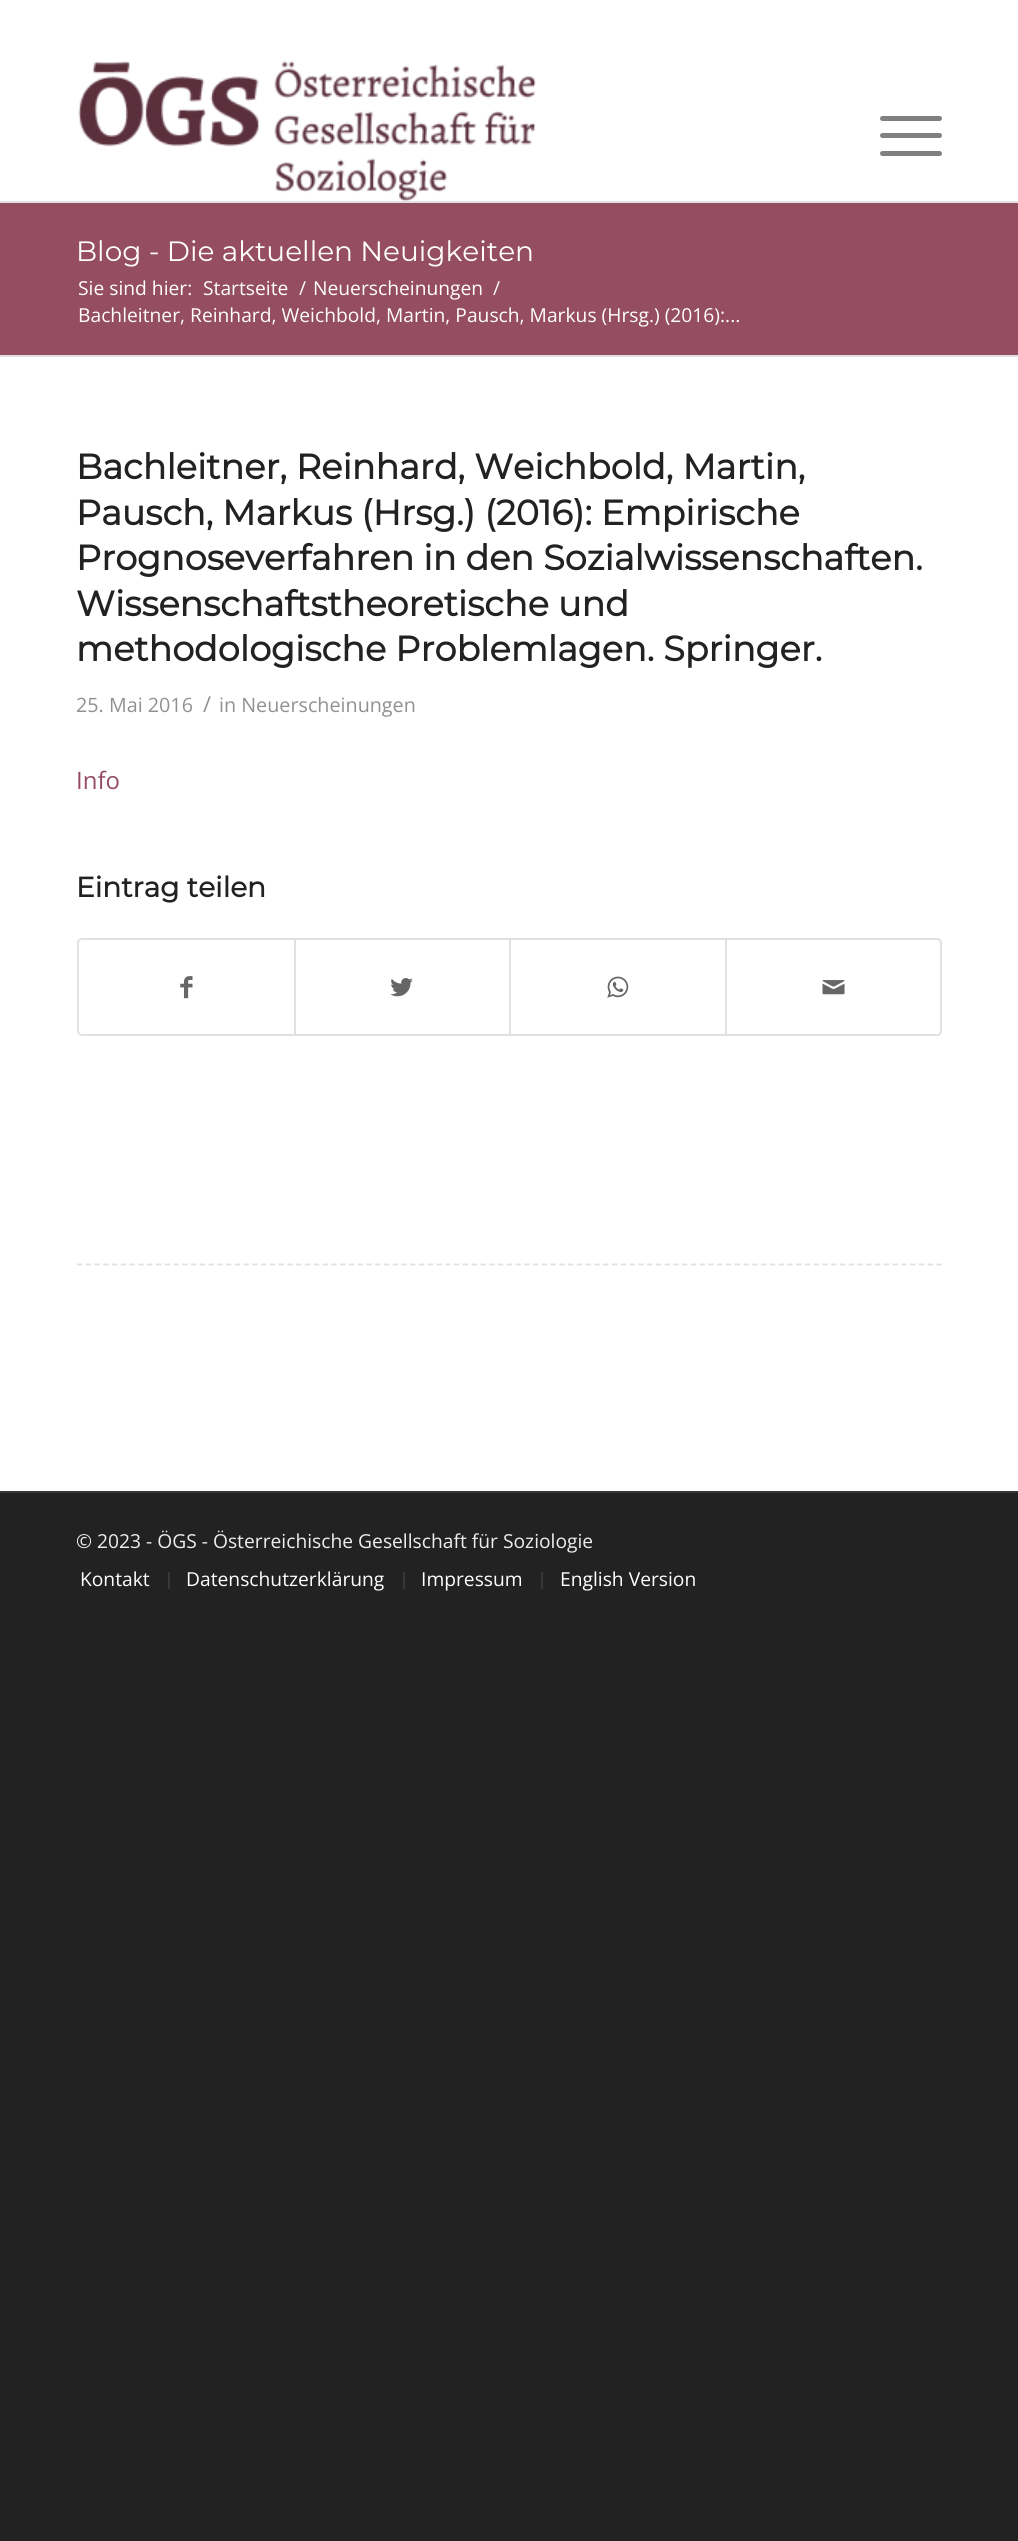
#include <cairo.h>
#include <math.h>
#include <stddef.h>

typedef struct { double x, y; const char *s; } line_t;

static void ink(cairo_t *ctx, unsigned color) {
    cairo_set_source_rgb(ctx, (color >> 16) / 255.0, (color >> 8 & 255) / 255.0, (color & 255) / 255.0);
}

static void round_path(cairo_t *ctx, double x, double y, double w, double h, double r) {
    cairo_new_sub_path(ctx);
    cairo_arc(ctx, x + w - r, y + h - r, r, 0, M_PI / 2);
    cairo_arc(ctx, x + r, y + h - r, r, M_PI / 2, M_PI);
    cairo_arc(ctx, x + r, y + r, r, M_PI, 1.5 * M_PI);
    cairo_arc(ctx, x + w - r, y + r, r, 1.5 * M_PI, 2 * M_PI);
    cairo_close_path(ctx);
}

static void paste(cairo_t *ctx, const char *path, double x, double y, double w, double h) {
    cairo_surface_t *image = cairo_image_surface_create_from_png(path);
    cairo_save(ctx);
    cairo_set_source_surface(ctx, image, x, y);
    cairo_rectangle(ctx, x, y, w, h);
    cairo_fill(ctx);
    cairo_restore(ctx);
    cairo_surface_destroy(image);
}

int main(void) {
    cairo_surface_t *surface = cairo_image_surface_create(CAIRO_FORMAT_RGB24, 1018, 2541);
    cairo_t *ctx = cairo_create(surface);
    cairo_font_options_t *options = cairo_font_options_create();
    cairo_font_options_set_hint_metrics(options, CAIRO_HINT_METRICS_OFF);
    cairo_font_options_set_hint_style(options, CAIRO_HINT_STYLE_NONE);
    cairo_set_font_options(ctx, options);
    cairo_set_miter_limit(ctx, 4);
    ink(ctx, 0x222222);
    cairo_paint(ctx);
    ink(ctx, 0xFFFFFF);
    cairo_rectangle(ctx, 0, 0, 1018, 1491);
    cairo_fill(ctx);
    ink(ctx, 0xE1E1E1);
    cairo_rectangle(ctx, 0, 201, 1018, 2);
    cairo_fill(ctx);
    paste(ctx, "media/1.png", 78, 61, 458, 140);
    ink(ctx, 0x808080);
    round_path(ctx, 880, 133, 62, 5, 2.5);
    cairo_fill(ctx);
    round_path(ctx, 880, 116, 62, 5, 2.5);
    cairo_fill(ctx);
    round_path(ctx, 880, 151, 62, 5, 2.5);
    cairo_fill(ctx);
    ink(ctx, 0x954D61);
    cairo_rectangle(ctx, 0, 203, 1018, 152);
    cairo_fill(ctx);
    cairo_select_font_face(ctx, "Montserrat", CAIRO_FONT_SLANT_NORMAL, CAIRO_FONT_WEIGHT_NORMAL);
    cairo_set_font_size(ctx, 28);
    ink(ctx, 0xFFFFFF);
    cairo_move_to(ctx, 76, 261);
    cairo_show_text(ctx, "Blog - Die aktuellen Neuigkeiten");
    cairo_select_font_face(ctx, "Open Sans", CAIRO_FONT_SLANT_NORMAL, CAIRO_FONT_WEIGHT_NORMAL);
    cairo_set_font_size(ctx, 19.25);
    {
        static const line_t items[] = {
            {78, 295, "Sie sind hier:"},
            {203, 295, "Startseite"},
            {299, 295, "/"},
            {313, 295, "Neuerscheinungen"},
            {493, 295, "/"},
            {78, 322, "Bachleitner, Reinhard, Weichbold, Martin, Pausch, Markus (Hrsg.) (2016):..."},
        };
        for (size_t i = 0; i < sizeof items / sizeof *items; i++) {
            cairo_move_to(ctx, items[i].x, items[i].y);
            cairo_show_text(ctx, items[i].s);
        }
    }
    ink(ctx, 0xE1E1E1);
    cairo_rectangle(ctx, 0, 355, 1018, 2);
    cairo_fill(ctx);
    cairo_select_font_face(ctx, "Montserrat", CAIRO_FONT_SLANT_NORMAL, CAIRO_FONT_WEIGHT_BOLD);
    cairo_set_font_size(ctx, 35);
    ink(ctx, 0x222222);
    {
        static const line_t items[] = {
            {76, 479, "Bachleitner, Reinhard, Weichbold, Martin,"},
            {76, 525, "Pausch, Markus (Hrsg.) (2016): Empirische"},
            {76, 570, "Prognoseverfahren in den Sozialwissenschaften."},
            {76, 616, "Wissenschaftstheoretische und"},
            {76, 661, "methodologische Problemlagen. Springer."},
        };
        for (size_t i = 0; i < sizeof items / sizeof *items; i++) {
            cairo_move_to(ctx, items[i].x, items[i].y);
            cairo_show_text(ctx, items[i].s);
        }
    }
    cairo_select_font_face(ctx, "Open Sans", CAIRO_FONT_SLANT_NORMAL, CAIRO_FONT_WEIGHT_NORMAL);
    cairo_set_font_size(ctx, 19.75);
    ink(ctx, 0x919191);
    cairo_move_to(ctx, 76, 712);
    cairo_show_text(ctx, "25. Mai 2016");
    cairo_set_font_size(ctx, 22);
    cairo_move_to(ctx, 203, 712);
    cairo_show_text(ctx, "/");
    cairo_set_font_size(ctx, 19.75);
    cairo_move_to(ctx, 219, 712);
    cairo_show_text(ctx, "in Neuerscheinungen");
    cairo_set_font_size(ctx, 24);
    ink(ctx, 0x954D61);
    cairo_move_to(ctx, 76, 789);
    cairo_show_text(ctx, "Info");
    cairo_select_font_face(ctx, "Montserrat", CAIRO_FONT_SLANT_NORMAL, CAIRO_FONT_WEIGHT_BOLD);
    cairo_set_font_size(ctx, 28);
    ink(ctx, 0x222222);
    cairo_move_to(ctx, 76, 897);
    cairo_show_text(ctx, "Eintrag teilen");
    round_path(ctx, 78, 939, 863, 96, 4);
    ink(ctx, 0xE1E1E1);
    cairo_stroke(ctx);
    paste(ctx, "media/2.png", 180, 976, 13, 23);
    cairo_rectangle(ctx, 294, 940, 2, 94);
    cairo_fill(ctx);
    paste(ctx, "media/3.png", 390, 978, 23, 19);
    cairo_rectangle(ctx, 509, 940, 2, 94);
    cairo_fill(ctx);
    paste(ctx, "media/4.png", 607, 976, 22, 22);
    cairo_rectangle(ctx, 725, 940, 2, 94);
    cairo_fill(ctx);
    paste(ctx, "media/5.png", 822, 980, 23, 15);
    cairo_new_path(ctx);
    cairo_move_to(ctx, 77, 1264.5);
    cairo_line_to(ctx, 941.5, 1264.5);
    cairo_set_line_width(ctx, 1.8);
    cairo_set_dash(ctx, (double[]){5.25, 3.52}, 2, 0);
    cairo_stroke(ctx);
    ink(ctx, 0x373737);
    cairo_rectangle(ctx, 0, 1491, 1018, 2);
    cairo_fill(ctx);
    cairo_select_font_face(ctx, "Open Sans", CAIRO_FONT_SLANT_NORMAL, CAIRO_FONT_WEIGHT_NORMAL);
    cairo_set_font_size(ctx, 19.25);
    ink(ctx, 0xEEEEEE);
    cairo_move_to(ctx, 76, 1548);
    cairo_show_text(ctx, "© 2023 - ÖGS - Österreichische Gesellschaft für Soziologie");
    ink(ctx, 0xFFFFFF);
    cairo_move_to(ctx, 80, 1586);
    cairo_show_text(ctx, "Kontakt");
    ink(ctx, 0x373737);
    cairo_rectangle(ctx, 168, 1572, 2, 17);
    cairo_fill(ctx);
    ink(ctx, 0xFFFFFF);
    cairo_move_to(ctx, 186, 1586);
    cairo_show_text(ctx, "Datenschutzerklärung");
    ink(ctx, 0x373737);
    cairo_rectangle(ctx, 403, 1572, 2, 17);
    cairo_fill(ctx);
    ink(ctx, 0xFFFFFF);
    cairo_move_to(ctx, 421, 1586);
    cairo_show_text(ctx, "Impressum");
    ink(ctx, 0x373737);
    cairo_rectangle(ctx, 541, 1572, 2, 17);
    cairo_fill(ctx);
    ink(ctx, 0xFFFFFF);
    cairo_move_to(ctx, 560, 1586);
    cairo_show_text(ctx, "English Version");
    cairo_surface_write_to_png(surface, "image.png");
    cairo_font_options_destroy(options);
    cairo_destroy(ctx);
    cairo_surface_destroy(surface);
    return 0;
}
